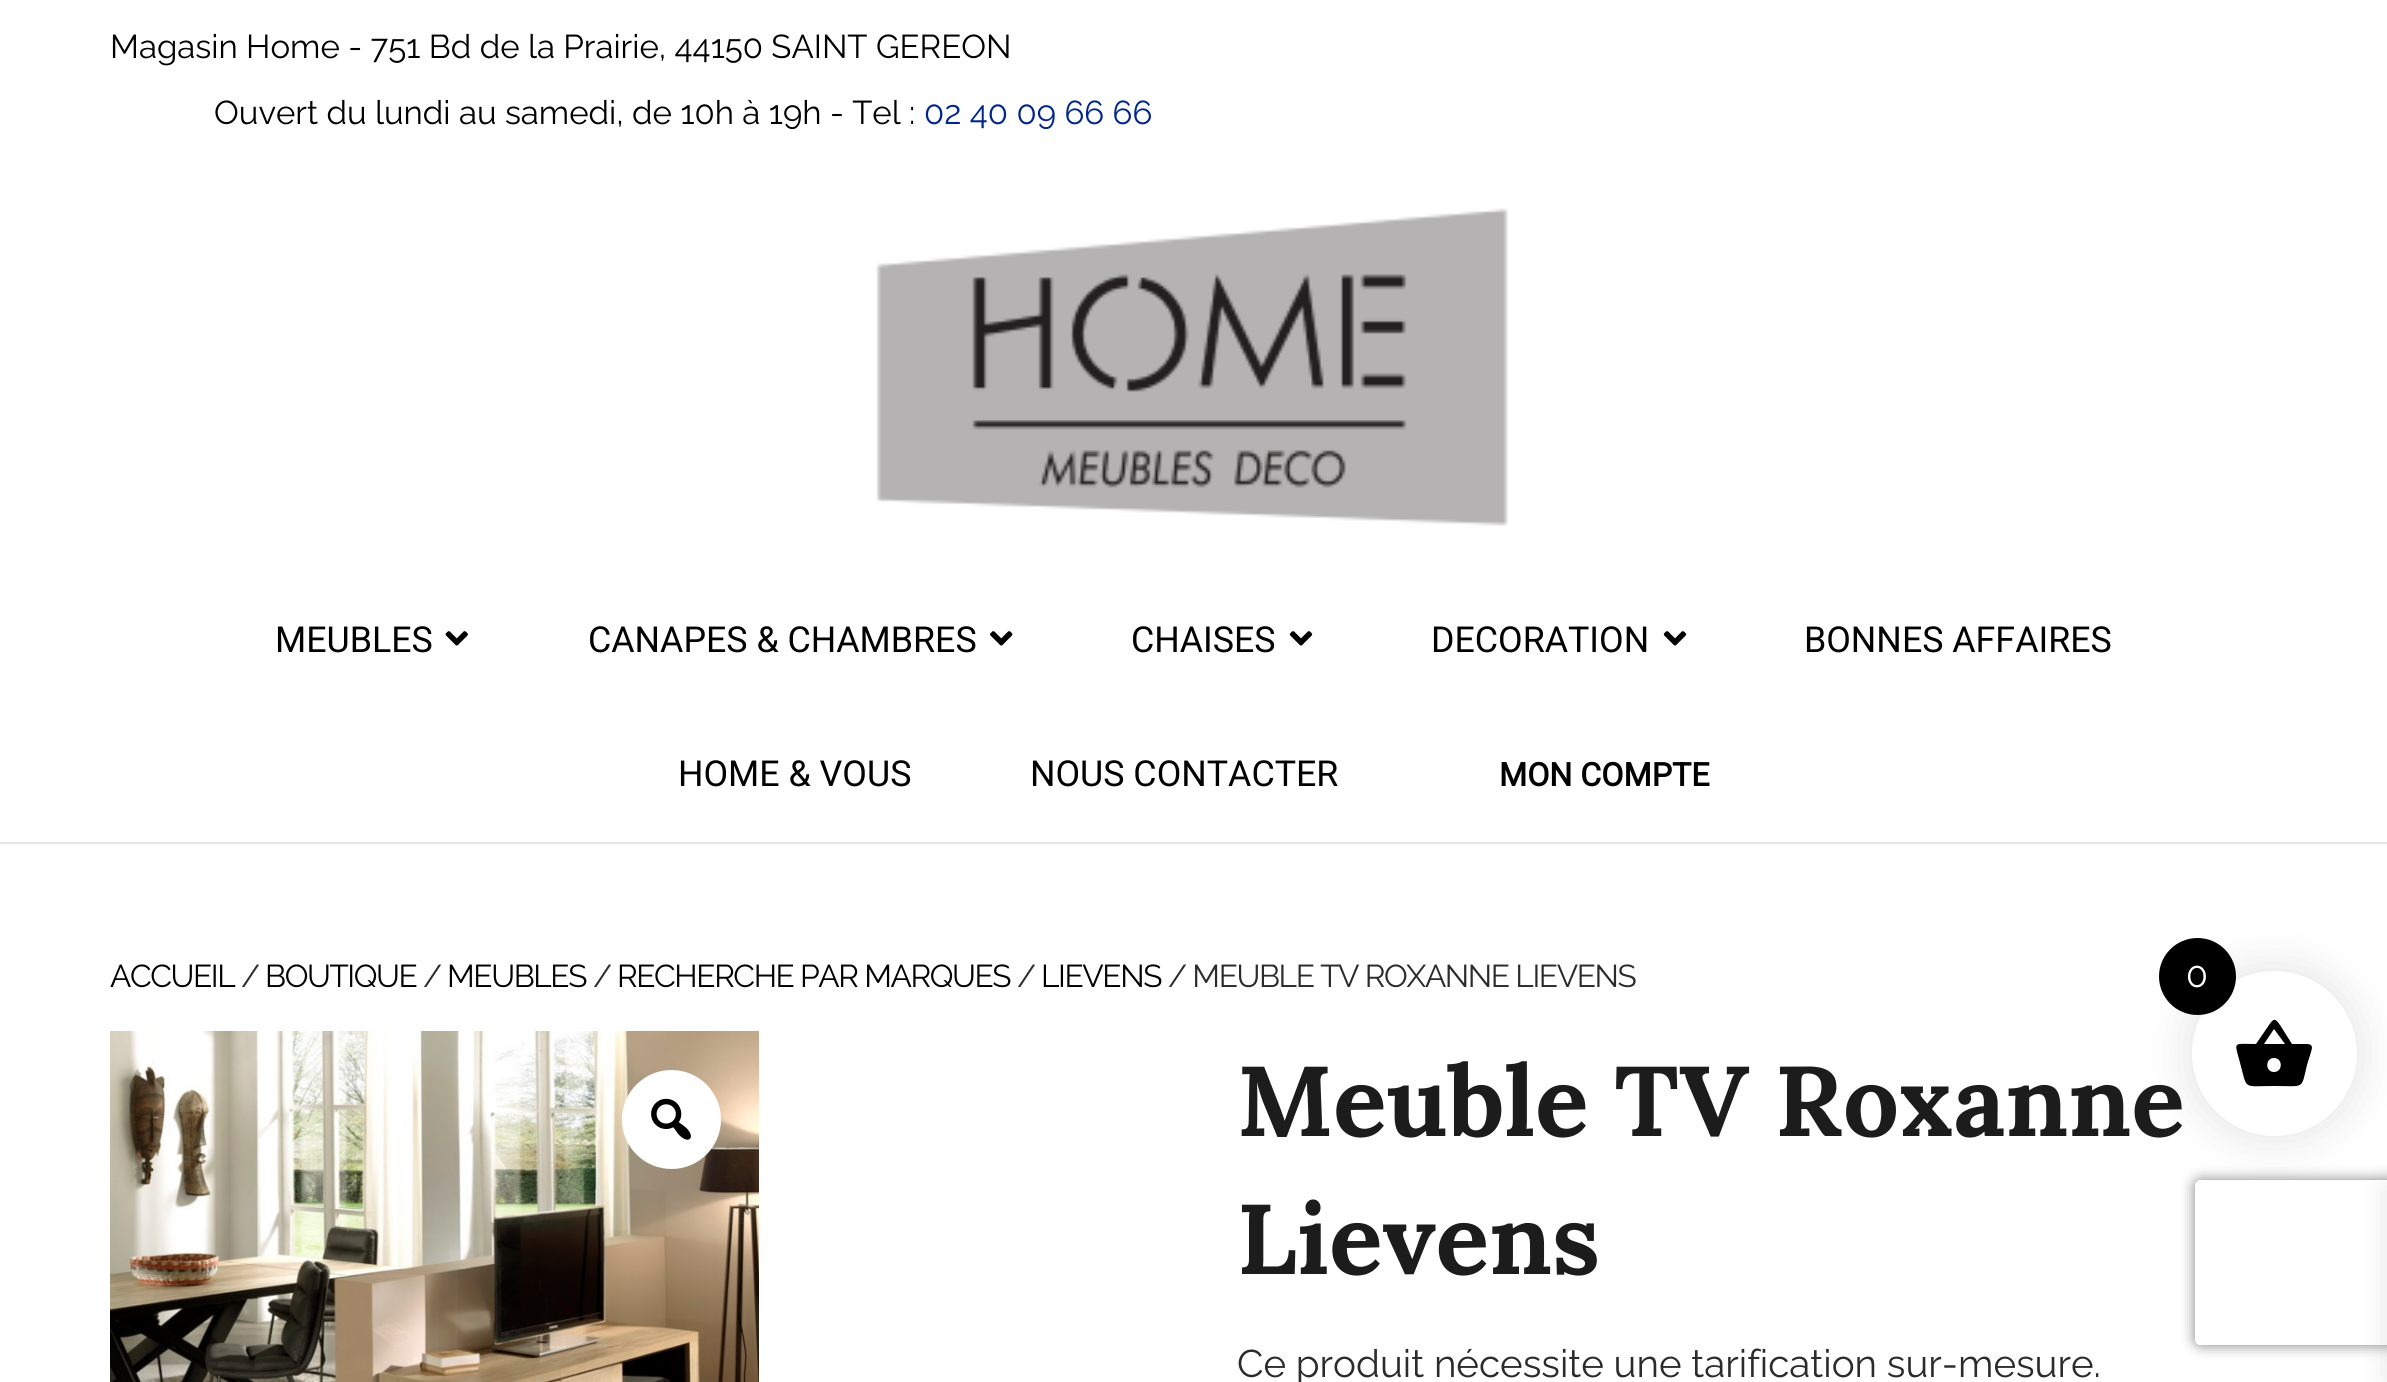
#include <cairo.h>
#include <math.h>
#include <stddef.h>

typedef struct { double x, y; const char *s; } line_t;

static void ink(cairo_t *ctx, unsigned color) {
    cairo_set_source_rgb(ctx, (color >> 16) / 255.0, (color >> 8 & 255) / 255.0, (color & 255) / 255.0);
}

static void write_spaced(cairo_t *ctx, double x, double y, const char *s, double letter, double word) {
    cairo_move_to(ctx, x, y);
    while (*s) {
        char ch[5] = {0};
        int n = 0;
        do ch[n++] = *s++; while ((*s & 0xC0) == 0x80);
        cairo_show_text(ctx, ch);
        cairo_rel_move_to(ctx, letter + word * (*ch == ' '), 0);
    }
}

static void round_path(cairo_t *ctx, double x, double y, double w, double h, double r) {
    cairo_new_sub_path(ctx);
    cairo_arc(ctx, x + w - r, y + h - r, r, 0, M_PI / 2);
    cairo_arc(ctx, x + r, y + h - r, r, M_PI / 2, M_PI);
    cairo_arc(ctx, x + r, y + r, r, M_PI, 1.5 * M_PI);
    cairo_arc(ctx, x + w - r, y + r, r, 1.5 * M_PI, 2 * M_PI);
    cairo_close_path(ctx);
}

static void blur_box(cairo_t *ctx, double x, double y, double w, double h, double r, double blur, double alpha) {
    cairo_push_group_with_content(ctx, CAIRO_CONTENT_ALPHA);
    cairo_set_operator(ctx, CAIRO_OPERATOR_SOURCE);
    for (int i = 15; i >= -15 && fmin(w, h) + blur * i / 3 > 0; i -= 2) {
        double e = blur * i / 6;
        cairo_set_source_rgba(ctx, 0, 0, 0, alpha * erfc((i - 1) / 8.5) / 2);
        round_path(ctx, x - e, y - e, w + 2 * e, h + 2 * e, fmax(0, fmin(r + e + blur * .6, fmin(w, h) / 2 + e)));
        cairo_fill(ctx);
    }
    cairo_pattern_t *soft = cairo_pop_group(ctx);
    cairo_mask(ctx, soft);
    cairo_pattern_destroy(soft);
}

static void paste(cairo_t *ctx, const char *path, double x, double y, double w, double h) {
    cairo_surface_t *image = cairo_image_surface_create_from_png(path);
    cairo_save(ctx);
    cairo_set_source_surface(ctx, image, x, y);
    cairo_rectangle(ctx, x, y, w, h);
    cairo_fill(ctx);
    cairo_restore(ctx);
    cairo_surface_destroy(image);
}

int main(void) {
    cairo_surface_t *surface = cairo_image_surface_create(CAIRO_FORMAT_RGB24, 2387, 1382);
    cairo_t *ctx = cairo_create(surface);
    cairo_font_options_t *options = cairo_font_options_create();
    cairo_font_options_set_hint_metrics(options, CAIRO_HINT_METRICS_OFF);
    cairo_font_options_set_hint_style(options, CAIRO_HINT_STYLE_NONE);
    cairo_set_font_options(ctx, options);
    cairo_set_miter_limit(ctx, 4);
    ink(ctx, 0xFFFFFF);
    cairo_paint(ctx);
    cairo_select_font_face(ctx, "Raleway", CAIRO_FONT_SLANT_NORMAL, CAIRO_FONT_WEIGHT_NORMAL);
    cairo_set_font_size(ctx, 33);
    ink(ctx, 0x000000);
    cairo_move_to(ctx, 110, 58);
    cairo_show_text(ctx, "Magasin Home - 751 Bd de la Prairie, 44150 SAINT GEREON");
    cairo_move_to(ctx, 214, 124);
    cairo_show_text(ctx, "Ouvert du lundi au samedi, de 10h à 19h - Tel :");
    ink(ctx, 0x00258C);
    cairo_move_to(ctx, 924, 124);
    cairo_show_text(ctx, "02 40 09 66 66");
    paste(ctx, "media/1.png", 876, 208, 632, 318);
    ink(ctx, 0xE6E6E6);
    cairo_rectangle(ctx, 0, 842, 2387, 2);
    cairo_fill(ctx);
    cairo_select_font_face(ctx, "Roboto", CAIRO_FONT_SLANT_NORMAL, CAIRO_FONT_WEIGHT_NORMAL);
    cairo_set_font_size(ctx, 35.75);
    ink(ctx, 0x000000);
    cairo_move_to(ctx, 275, 652);
    cairo_show_text(ctx, "MEUBLES");
    paste(ctx, "media/2.png", 445, 631, 23, 15);
    cairo_move_to(ctx, 588, 652);
    cairo_show_text(ctx, "CANAPES & CHAMBRES");
    paste(ctx, "media/3.png", 990, 631, 23, 15);
    cairo_move_to(ctx, 1131, 652);
    cairo_show_text(ctx, "CHAISES");
    paste(ctx, "media/4.png", 1289, 631, 24, 15);
    cairo_move_to(ctx, 1431, 652);
    cairo_show_text(ctx, "DECORATION");
    paste(ctx, "media/4.png", 1663, 631, 24, 15);
    {
        static const line_t items[] = {
            {1804, 652, "BONNES AFFAIRES"},
            {678, 786, "HOME & VOUS"},
            {1030, 786, "NOUS CONTACTER"},
        };
        for (size_t i = 0; i < sizeof items / sizeof *items; i++) {
            cairo_move_to(ctx, items[i].x, items[i].y);
            cairo_show_text(ctx, items[i].s);
        }
    }
    cairo_select_font_face(ctx, "Roboto", CAIRO_FONT_SLANT_NORMAL, CAIRO_FONT_WEIGHT_BOLD);
    cairo_set_font_size(ctx, 32.25);
    cairo_move_to(ctx, 1499, 786);
    cairo_show_text(ctx, "MON COMPTE");
    cairo_select_font_face(ctx, "Raleway", CAIRO_FONT_SLANT_NORMAL, CAIRO_FONT_WEIGHT_NORMAL);
    cairo_set_font_size(ctx, 31.6);
    write_spaced(ctx, 110, 987, "ACCUEIL", -1.4, 0);
    ink(ctx, 0x2B2B2B);
    write_spaced(ctx, 241, 987, "/", -1.4, 0);
    ink(ctx, 0x000000);
    write_spaced(ctx, 265, 987, "BOUTIQUE", -1.4, 0);
    ink(ctx, 0x2B2B2B);
    write_spaced(ctx, 423, 987, "/", -1.4, 0);
    ink(ctx, 0x000000);
    write_spaced(ctx, 447, 987, "MEUBLES", -1.4, 0);
    ink(ctx, 0x2B2B2B);
    write_spaced(ctx, 593, 987, "/", -1.4, 0);
    ink(ctx, 0x000000);
    write_spaced(ctx, 617, 987, "RECHERCHE PAR MARQUES", -1.4, 0);
    ink(ctx, 0x2B2B2B);
    write_spaced(ctx, 1017, 987, "/", -1.4, 0);
    ink(ctx, 0x000000);
    write_spaced(ctx, 1041, 987, "LIEVENS", -1.4, 0);
    ink(ctx, 0x2B2B2B);
    write_spaced(ctx, 1168, 987, "/ MEUBLE TV ROXANNE LIEVENS", -1.4, 0);
    paste(ctx, "media/5.png", 110, 1031, 649, 351);
    ink(ctx, 0xFFFFFF);
    cairo_arc(ctx, 671.5, 1119.5, 49.5, 0, 2 * M_PI);
    cairo_fill(ctx);
    paste(ctx, "media/6.png", 651, 1098, 40, 42);
    cairo_select_font_face(ctx, "Lora", CAIRO_FONT_SLANT_NORMAL, CAIRO_FONT_WEIGHT_BOLD);
    cairo_set_font_size(ctx, 99);
    ink(ctx, 0x1C1C1C);
    cairo_move_to(ctx, 1237, 1136);
    cairo_show_text(ctx, "Meuble TV Roxanne");
    cairo_move_to(ctx, 1237, 1274);
    cairo_show_text(ctx, "Lievens");
    cairo_select_font_face(ctx, "Raleway", CAIRO_FONT_SLANT_NORMAL, CAIRO_FONT_WEIGHT_NORMAL);
    cairo_set_font_size(ctx, 38.5);
    ink(ctx, 0x2B2B2B);
    cairo_move_to(ctx, 1237, 1377);
    cairo_show_text(ctx, "Ce produit nécessite une tarification sur-mesure.");
    ink(ctx, 0x000000);
    blur_box(ctx, 2186, 965, 176, 176, 88, 20.5, 0.1);
    ink(ctx, 0xFFFFFF);
    cairo_arc(ctx, 2274.5, 1053.5, 82.5, 0, 2 * M_PI);
    cairo_fill(ctx);
    ink(ctx, 0x000000);
    cairo_arc(ctx, 2197.5, 976.5, 38.5, 0, 2 * M_PI);
    cairo_fill(ctx);
    cairo_set_font_size(ctx, 35.75);
    ink(ctx, 0xFFFFFF);
    cairo_move_to(ctx, 2186, 987);
    cairo_show_text(ctx, "0");
    ink(ctx, 0x000000);
    cairo_new_path(ctx);
    cairo_move_to(ctx, 2274, 1072);
    cairo_curve_to(ctx, 2283, 1072, 2283, 1058, 2274, 1058);
    cairo_curve_to(ctx, 2265, 1058, 2265, 1072, 2274, 1072);
    cairo_close_path(ctx);
    cairo_move_to(ctx, 2264, 1044);
    cairo_line_to(ctx, 2285, 1044);
    cairo_line_to(ctx, 2274, 1029);
    cairo_close_path(ctx);
    cairo_move_to(ctx, 2292, 1044);
    cairo_line_to(ctx, 2306, 1044);
    cairo_curve_to(ctx, 2312, 1044, 2313, 1046, 2311, 1052);
    cairo_line_to(ctx, 2307, 1065);
    cairo_curve_to(ctx, 2301, 1090, 2305, 1086, 2274, 1086);
    cairo_curve_to(ctx, 2241, 1086, 2248, 1091, 2239, 1059);
    cairo_curve_to(ctx, 2234, 1041, 2234, 1044, 2256, 1044);
    cairo_line_to(ctx, 2269, 1025);
    cairo_curve_to(ctx, 2274, 1018, 2275, 1018, 2280, 1025);
    cairo_close_path(ctx);
    cairo_fill(ctx);
    ink(ctx, 0x000000);
    blur_box(ctx, 2387, 1188, 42, 193, 0, 14, 0.1);
    cairo_save(ctx);
    cairo_set_fill_rule(ctx, CAIRO_FILL_RULE_EVEN_ODD);
    cairo_new_path(ctx);
    cairo_move_to(ctx, 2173, 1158);
    cairo_line_to(ctx, 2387, 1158);
    cairo_line_to(ctx, 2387, 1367);
    cairo_line_to(ctx, 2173, 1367);
    cairo_close_path(ctx);
    cairo_move_to(ctx, 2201, 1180);
    cairo_line_to(ctx, 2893, 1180);
    cairo_curve_to(ctx, 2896.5, 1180, 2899, 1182.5, 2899, 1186);
    cairo_line_to(ctx, 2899, 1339);
    cairo_curve_to(ctx, 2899, 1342.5, 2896.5, 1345, 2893, 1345);
    cairo_line_to(ctx, 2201, 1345);
    cairo_curve_to(ctx, 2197.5, 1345, 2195, 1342.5, 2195, 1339);
    cairo_line_to(ctx, 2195, 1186);
    cairo_curve_to(ctx, 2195, 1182.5, 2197.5, 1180, 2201, 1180);
    cairo_close_path(ctx);
    cairo_clip(ctx);
    ink(ctx, 0x808080);
    blur_box(ctx, 2195, 1180, 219, 165, 6, 7, 1);
    cairo_restore(ctx);
    cairo_surface_write_to_png(surface, "image.png");
    cairo_font_options_destroy(options);
    cairo_destroy(ctx);
    cairo_surface_destroy(surface);
    return 0;
}
